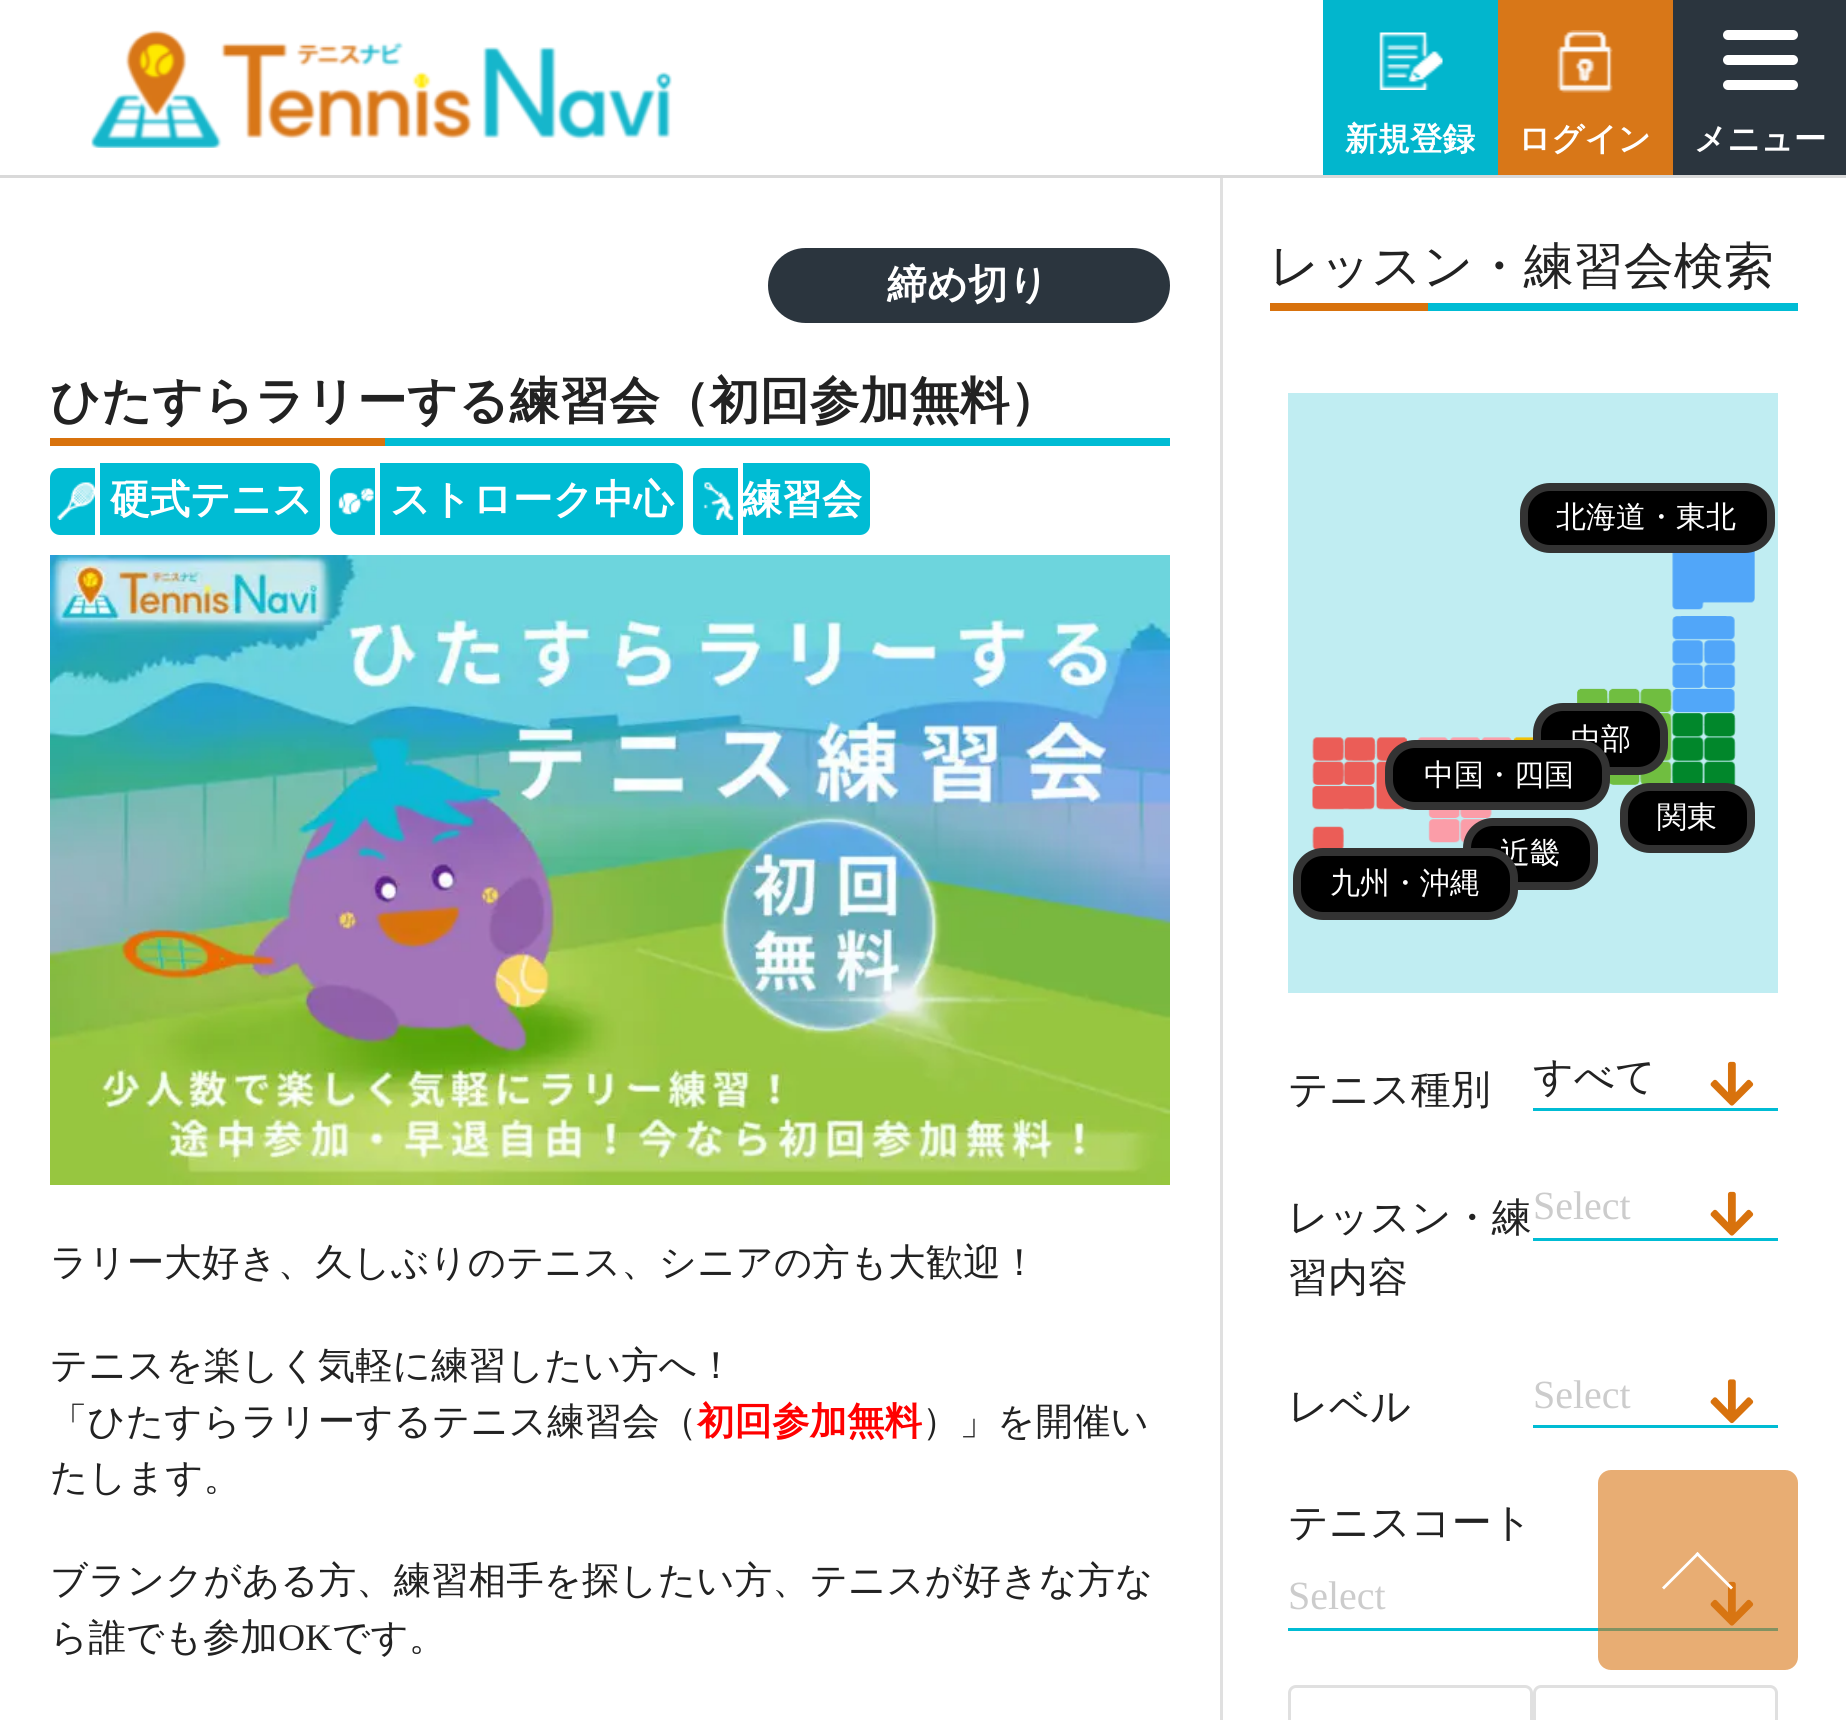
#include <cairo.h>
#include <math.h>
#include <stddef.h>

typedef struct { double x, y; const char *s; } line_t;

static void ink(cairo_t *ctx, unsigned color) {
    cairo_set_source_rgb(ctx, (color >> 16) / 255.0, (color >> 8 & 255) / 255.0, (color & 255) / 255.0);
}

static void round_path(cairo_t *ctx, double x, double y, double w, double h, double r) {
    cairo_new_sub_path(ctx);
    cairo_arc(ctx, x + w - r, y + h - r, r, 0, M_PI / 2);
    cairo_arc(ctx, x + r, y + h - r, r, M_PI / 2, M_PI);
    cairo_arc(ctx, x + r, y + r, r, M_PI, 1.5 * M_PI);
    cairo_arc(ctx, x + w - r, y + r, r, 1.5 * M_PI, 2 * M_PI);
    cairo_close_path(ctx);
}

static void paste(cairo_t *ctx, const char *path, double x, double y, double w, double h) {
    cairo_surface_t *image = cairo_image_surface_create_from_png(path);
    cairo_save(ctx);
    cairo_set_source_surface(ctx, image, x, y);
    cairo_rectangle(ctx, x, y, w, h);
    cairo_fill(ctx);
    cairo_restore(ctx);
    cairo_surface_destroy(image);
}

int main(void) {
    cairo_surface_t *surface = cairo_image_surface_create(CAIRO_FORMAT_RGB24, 1846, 1720);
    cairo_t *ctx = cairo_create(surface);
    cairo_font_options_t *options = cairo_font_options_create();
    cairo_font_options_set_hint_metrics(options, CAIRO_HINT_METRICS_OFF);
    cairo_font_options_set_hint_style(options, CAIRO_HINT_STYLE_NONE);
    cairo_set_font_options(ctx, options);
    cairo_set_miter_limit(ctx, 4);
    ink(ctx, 0xFFFFFF);
    cairo_paint(ctx);
    ink(ctx, 0xD9D9D9);
    cairo_rectangle(ctx, 0, 175, 1846, 3);
    cairo_fill(ctx);
    paste(ctx, "media/1.png", 91, 30, 581, 118);
    ink(ctx, 0x02B6CD);
    cairo_rectangle(ctx, 1323, 0, 175, 175);
    cairo_fill(ctx);
    paste(ctx, "media/2.png", 1379, 32, 64, 58);
    cairo_select_font_face(ctx, "WenQuanYi Zen Hei", CAIRO_FONT_SLANT_NORMAL, CAIRO_FONT_WEIGHT_BOLD);
    cairo_set_font_size(ctx, 32.5);
    ink(ctx, 0xFFFFFF);
    cairo_move_to(ctx, 1345, 150);
    cairo_show_text(ctx, "新規登録");
    ink(ctx, 0xD87718);
    cairo_rectangle(ctx, 1498, 0, 175, 175);
    cairo_fill(ctx);
    paste(ctx, "media/3.png", 1557, 30, 56, 63);
    ink(ctx, 0xFFFFFF);
    cairo_move_to(ctx, 1518, 150);
    cairo_show_text(ctx, "ログイン");
    ink(ctx, 0x2B353E);
    cairo_rectangle(ctx, 1673, 0, 173, 175);
    cairo_fill(ctx);
    ink(ctx, 0xFFFFFF);
    round_path(ctx, 1723, 30, 75, 10, 5);
    cairo_fill(ctx);
    round_path(ctx, 1723, 55, 75, 10, 5);
    cairo_fill(ctx);
    round_path(ctx, 1723, 80, 75, 10, 5);
    cairo_fill(ctx);
    cairo_move_to(ctx, 1694, 150);
    cairo_show_text(ctx, "メニュー");
    ink(ctx, 0xE0E0E0);
    cairo_new_path(ctx);
    cairo_move_to(ctx, 3, 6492);
    cairo_line_to(ctx, 3, 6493);
    cairo_line_to(ctx, 1223, 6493);
    cairo_line_to(ctx, 1223, 178);
    cairo_line_to(ctx, 1220, 178);
    cairo_line_to(ctx, 1220, 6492);
    cairo_close_path(ctx);
    cairo_fill(ctx);
    ink(ctx, 0x2B353E);
    round_path(ctx, 768, 248, 402, 75, 37.5);
    cairo_fill(ctx);
    cairo_set_font_size(ctx, 40);
    ink(ctx, 0xFFFFFF);
    cairo_move_to(ctx, 887, 298);
    cairo_show_text(ctx, "締め切り");
    ink(ctx, 0x00BCD4);
    cairo_rectangle(ctx, 385, 438, 785, 8);
    cairo_fill(ctx);
    cairo_set_font_size(ctx, 50);
    ink(ctx, 0x222222);
    cairo_move_to(ctx, 50, 418);
    cairo_show_text(ctx, "ひたすらラリーする練習会（初回参加無料）");
    ink(ctx, 0xD8720D);
    cairo_rectangle(ctx, 50, 438, 335, 8);
    cairo_fill(ctx);
    ink(ctx, 0x00BCD4);
    cairo_new_path(ctx);
    cairo_move_to(ctx, 60, 468);
    cairo_line_to(ctx, 95, 468);
    cairo_line_to(ctx, 95, 535);
    cairo_line_to(ctx, 60, 535);
    cairo_curve_to(ctx, 54.5, 535, 50, 530.5, 50, 525);
    cairo_line_to(ctx, 50, 478);
    cairo_curve_to(ctx, 50, 472.5, 54.5, 468, 60, 468);
    cairo_close_path(ctx);
    cairo_fill(ctx);
    paste(ctx, "media/4.png", 57, 482, 38, 38);
    cairo_new_path(ctx);
    cairo_move_to(ctx, 100, 463);
    cairo_line_to(ctx, 310, 463);
    cairo_curve_to(ctx, 315.5, 463, 320, 467.5, 320, 473);
    cairo_line_to(ctx, 320, 525);
    cairo_curve_to(ctx, 320, 530.5, 315.5, 535, 310, 535);
    cairo_line_to(ctx, 100, 535);
    cairo_close_path(ctx);
    cairo_fill(ctx);
    cairo_set_font_size(ctx, 40);
    ink(ctx, 0xFFFFFF);
    cairo_move_to(ctx, 110, 513);
    cairo_show_text(ctx, "硬式テニス");
    ink(ctx, 0x00BCD4);
    cairo_new_path(ctx);
    cairo_move_to(ctx, 340, 468);
    cairo_line_to(ctx, 375, 468);
    cairo_line_to(ctx, 375, 535);
    cairo_line_to(ctx, 340, 535);
    cairo_curve_to(ctx, 334.5, 535, 330, 530.5, 330, 525);
    cairo_line_to(ctx, 330, 478);
    cairo_curve_to(ctx, 330, 472.5, 334.5, 468, 340, 468);
    cairo_close_path(ctx);
    cairo_fill(ctx);
    paste(ctx, "media/5.png", 338, 488, 36, 27);
    cairo_new_path(ctx);
    cairo_move_to(ctx, 380, 463);
    cairo_line_to(ctx, 673, 463);
    cairo_curve_to(ctx, 678.5, 463, 683, 467.5, 683, 473);
    cairo_line_to(ctx, 683, 525);
    cairo_curve_to(ctx, 683, 530.5, 678.5, 535, 673, 535);
    cairo_line_to(ctx, 380, 535);
    cairo_close_path(ctx);
    cairo_fill(ctx);
    ink(ctx, 0xFFFFFF);
    cairo_move_to(ctx, 390, 513);
    cairo_show_text(ctx, "ストローク中心");
    ink(ctx, 0x00BCD4);
    cairo_new_path(ctx);
    cairo_move_to(ctx, 703, 468);
    cairo_line_to(ctx, 738, 468);
    cairo_line_to(ctx, 738, 535);
    cairo_line_to(ctx, 703, 535);
    cairo_curve_to(ctx, 697.5, 535, 693, 530.5, 693, 525);
    cairo_line_to(ctx, 693, 478);
    cairo_curve_to(ctx, 693, 472.5, 697.5, 468, 703, 468);
    cairo_close_path(ctx);
    cairo_fill(ctx);
    paste(ctx, "media/6.png", 703, 482, 31, 38);
    cairo_new_path(ctx);
    cairo_move_to(ctx, 743, 463);
    cairo_line_to(ctx, 860, 463);
    cairo_curve_to(ctx, 865.5, 463, 870, 467.5, 870, 473);
    cairo_line_to(ctx, 870, 525);
    cairo_curve_to(ctx, 870, 530.5, 865.5, 535, 860, 535);
    cairo_line_to(ctx, 743, 535);
    cairo_close_path(ctx);
    cairo_fill(ctx);
    ink(ctx, 0xFFFFFF);
    cairo_move_to(ctx, 742, 513);
    cairo_show_text(ctx, "練習会");
    paste(ctx, "media/7.png", 50, 555, 1120, 630);
    cairo_select_font_face(ctx, "WenQuanYi Zen Hei Medium", CAIRO_FONT_SLANT_NORMAL, CAIRO_FONT_WEIGHT_NORMAL);
    cairo_set_font_size(ctx, 37.5);
    ink(ctx, 0x222222);
    {
        static const line_t items[] = {
            {50, 1275, "ラリー大好き、久しぶりのテニス、シニアの方も大歓迎！"},
            {50, 1378, "テニスを楽しく気軽に練習したい方へ！"},
            {50, 1434, "「ひたすらラリーするテニス練習会（"},
        };
        for (size_t i = 0; i < sizeof items / sizeof *items; i++) {
            cairo_move_to(ctx, items[i].x, items[i].y);
            cairo_show_text(ctx, items[i].s);
        }
    }
    cairo_select_font_face(ctx, "WenQuanYi Zen Hei", CAIRO_FONT_SLANT_NORMAL, CAIRO_FONT_WEIGHT_BOLD);
    ink(ctx, 0xFF0000);
    cairo_move_to(ctx, 697, 1434);
    cairo_show_text(ctx, "初回参加無料");
    cairo_select_font_face(ctx, "WenQuanYi Zen Hei Medium", CAIRO_FONT_SLANT_NORMAL, CAIRO_FONT_WEIGHT_NORMAL);
    ink(ctx, 0x222222);
    {
        static const line_t items[] = {
            {922, 1434, "）」を開催い"},
            {50, 1490, "たします。"},
            {50, 1593, "ブランクがある方、練習相手を探したい方、テニスが好きな方な"},
            {50, 1650, "ら誰でも参加"},
        };
        for (size_t i = 0; i < sizeof items / sizeof *items; i++) {
            cairo_move_to(ctx, items[i].x, items[i].y);
            cairo_show_text(ctx, items[i].s);
        }
    }
    cairo_select_font_face(ctx, "Liberation Serif", CAIRO_FONT_SLANT_NORMAL, CAIRO_FONT_WEIGHT_NORMAL);
    cairo_move_to(ctx, 278, 1650);
    cairo_show_text(ctx, "OK");
    cairo_select_font_face(ctx, "WenQuanYi Zen Hei Medium", CAIRO_FONT_SLANT_NORMAL, CAIRO_FONT_WEIGHT_NORMAL);
    cairo_move_to(ctx, 332, 1650);
    cairo_show_text(ctx, "です。");
    ink(ctx, 0x00BCD4);
    cairo_rectangle(ctx, 1428, 303, 370, 8);
    cairo_fill(ctx);
    cairo_set_font_size(ctx, 50);
    ink(ctx, 0x222222);
    cairo_move_to(ctx, 1269, 283);
    cairo_show_text(ctx, "レッスン・練習会検索");
    ink(ctx, 0xD8720D);
    cairo_rectangle(ctx, 1270, 303, 158, 8);
    cairo_fill(ctx);
    ink(ctx, 0xC0EDF2);
    cairo_rectangle(ctx, 1288, 393, 490, 600);
    cairo_fill(ctx);
    paste(ctx, "media/8.png", 1312, 551, 443, 299);
    ink(ctx, 0x000000);
    round_path(ctx, 1524, 487, 247, 62, 26);
    cairo_fill_preserve(ctx);
    ink(ctx, 0x333333);
    cairo_set_line_width(ctx, 8);
    cairo_stroke(ctx);
    cairo_set_font_size(ctx, 30);
    ink(ctx, 0xFFFFFF);
    cairo_move_to(ctx, 1556, 527);
    cairo_show_text(ctx, "北海道・東北");
    ink(ctx, 0x000000);
    round_path(ctx, 1537, 707, 127, 64, 26);
    cairo_fill_preserve(ctx);
    ink(ctx, 0x333333);
    cairo_stroke(ctx);
    ink(ctx, 0xFFFFFF);
    cairo_move_to(ctx, 1571, 749);
    cairo_show_text(ctx, "中部");
    ink(ctx, 0x000000);
    round_path(ctx, 1389, 744, 217, 62, 26);
    cairo_fill_preserve(ctx);
    ink(ctx, 0x333333);
    cairo_stroke(ctx);
    ink(ctx, 0xFFFFFF);
    cairo_move_to(ctx, 1424, 785);
    cairo_show_text(ctx, "中国・四国");
    ink(ctx, 0x000000);
    round_path(ctx, 1624, 787, 127, 62, 26);
    cairo_fill_preserve(ctx);
    ink(ctx, 0x333333);
    cairo_stroke(ctx);
    ink(ctx, 0xFFFFFF);
    cairo_move_to(ctx, 1657, 827);
    cairo_show_text(ctx, "関東");
    ink(ctx, 0x000000);
    round_path(ctx, 1467, 822, 127, 64, 26);
    cairo_fill_preserve(ctx);
    ink(ctx, 0x333333);
    cairo_stroke(ctx);
    ink(ctx, 0xFFFFFF);
    cairo_move_to(ctx, 1500, 863);
    cairo_show_text(ctx, "近畿");
    ink(ctx, 0x000000);
    round_path(ctx, 1297, 852, 217, 64, 26);
    cairo_fill_preserve(ctx);
    ink(ctx, 0x333333);
    cairo_stroke(ctx);
    ink(ctx, 0xFFFFFF);
    cairo_move_to(ctx, 1330, 893);
    cairo_show_text(ctx, "九州・沖縄");
    cairo_set_font_size(ctx, 40);
    ink(ctx, 0x222222);
    cairo_move_to(ctx, 1288, 1103);
    cairo_show_text(ctx, "テニス種別");
    ink(ctx, 0x00BCD4);
    cairo_rectangle(ctx, 1533, 1108, 245, 3);
    cairo_fill(ctx);
    ink(ctx, 0x222222);
    cairo_move_to(ctx, 1533, 1090);
    cairo_show_text(ctx, "すべて");
    paste(ctx, "media/9.png", 1710, 1061, 44, 45);
    cairo_move_to(ctx, 1288, 1231);
    cairo_show_text(ctx, "レッスン・練");
    cairo_move_to(ctx, 1288, 1291);
    cairo_show_text(ctx, "習内容");
    ink(ctx, 0x00BCD4);
    cairo_rectangle(ctx, 1533, 1238, 245, 3);
    cairo_fill(ctx);
    cairo_select_font_face(ctx, "Liberation Serif", CAIRO_FONT_SLANT_NORMAL, CAIRO_FONT_WEIGHT_NORMAL);
    ink(ctx, 0xCCCCCC);
    cairo_move_to(ctx, 1533, 1219);
    cairo_show_text(ctx, "Select");
    paste(ctx, "media/9.png", 1710, 1191, 44, 45);
    cairo_select_font_face(ctx, "WenQuanYi Zen Hei Medium", CAIRO_FONT_SLANT_NORMAL, CAIRO_FONT_WEIGHT_NORMAL);
    ink(ctx, 0x222222);
    cairo_move_to(ctx, 1288, 1420);
    cairo_show_text(ctx, "レベル");
    ink(ctx, 0x00BCD4);
    cairo_rectangle(ctx, 1533, 1425, 245, 3);
    cairo_fill(ctx);
    cairo_select_font_face(ctx, "Liberation Serif", CAIRO_FONT_SLANT_NORMAL, CAIRO_FONT_WEIGHT_NORMAL);
    ink(ctx, 0xCCCCCC);
    cairo_move_to(ctx, 1533, 1408);
    cairo_show_text(ctx, "Select");
    paste(ctx, "media/10.png", 1710, 1379, 44, 45);
    cairo_select_font_face(ctx, "WenQuanYi Zen Hei Medium", CAIRO_FONT_SLANT_NORMAL, CAIRO_FONT_WEIGHT_NORMAL);
    ink(ctx, 0x222222);
    cairo_move_to(ctx, 1288, 1536);
    cairo_show_text(ctx, "テニスコート");
    ink(ctx, 0x00BCD4);
    cairo_rectangle(ctx, 1288, 1628, 490, 3);
    cairo_fill(ctx);
    cairo_select_font_face(ctx, "Liberation Serif", CAIRO_FONT_SLANT_NORMAL, CAIRO_FONT_WEIGHT_NORMAL);
    ink(ctx, 0xCCCCCC);
    cairo_move_to(ctx, 1288, 1609);
    cairo_show_text(ctx, "Select");
    paste(ctx, "media/9.png", 1710, 1581, 44, 45);
    round_path(ctx, 1289.5, 1686.5, 242, 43, 6.5);
    ink(ctx, 0xE0E0E0);
    cairo_set_line_width(ctx, 3);
    cairo_stroke(ctx);
    round_path(ctx, 1534.5, 1686.5, 242, 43, 6.5);
    cairo_stroke(ctx);
    cairo_set_source_rgba(ctx, 0.847, 0.467, 0.09, 0.6);
    round_path(ctx, 1598, 1470, 200, 200, 13);
    cairo_fill(ctx);
    ink(ctx, 0xFFFFFF);
    cairo_new_path(ctx);
    cairo_move_to(ctx, 1697.5, 1552);
    cairo_line_to(ctx, 1733, 1587.5);
    cairo_line_to(ctx, 1731, 1589.5);
    cairo_line_to(ctx, 1695.5, 1554);
    cairo_close_path(ctx);
    cairo_fill(ctx);
    cairo_new_path(ctx);
    cairo_move_to(ctx, 1697.5, 1552);
    cairo_line_to(ctx, 1699.5, 1554);
    cairo_line_to(ctx, 1664, 1589.5);
    cairo_line_to(ctx, 1662, 1587.5);
    cairo_close_path(ctx);
    cairo_fill(ctx);
    cairo_surface_write_to_png(surface, "image.png");
    cairo_font_options_destroy(options);
    cairo_destroy(ctx);
    cairo_surface_destroy(surface);
    return 0;
}
